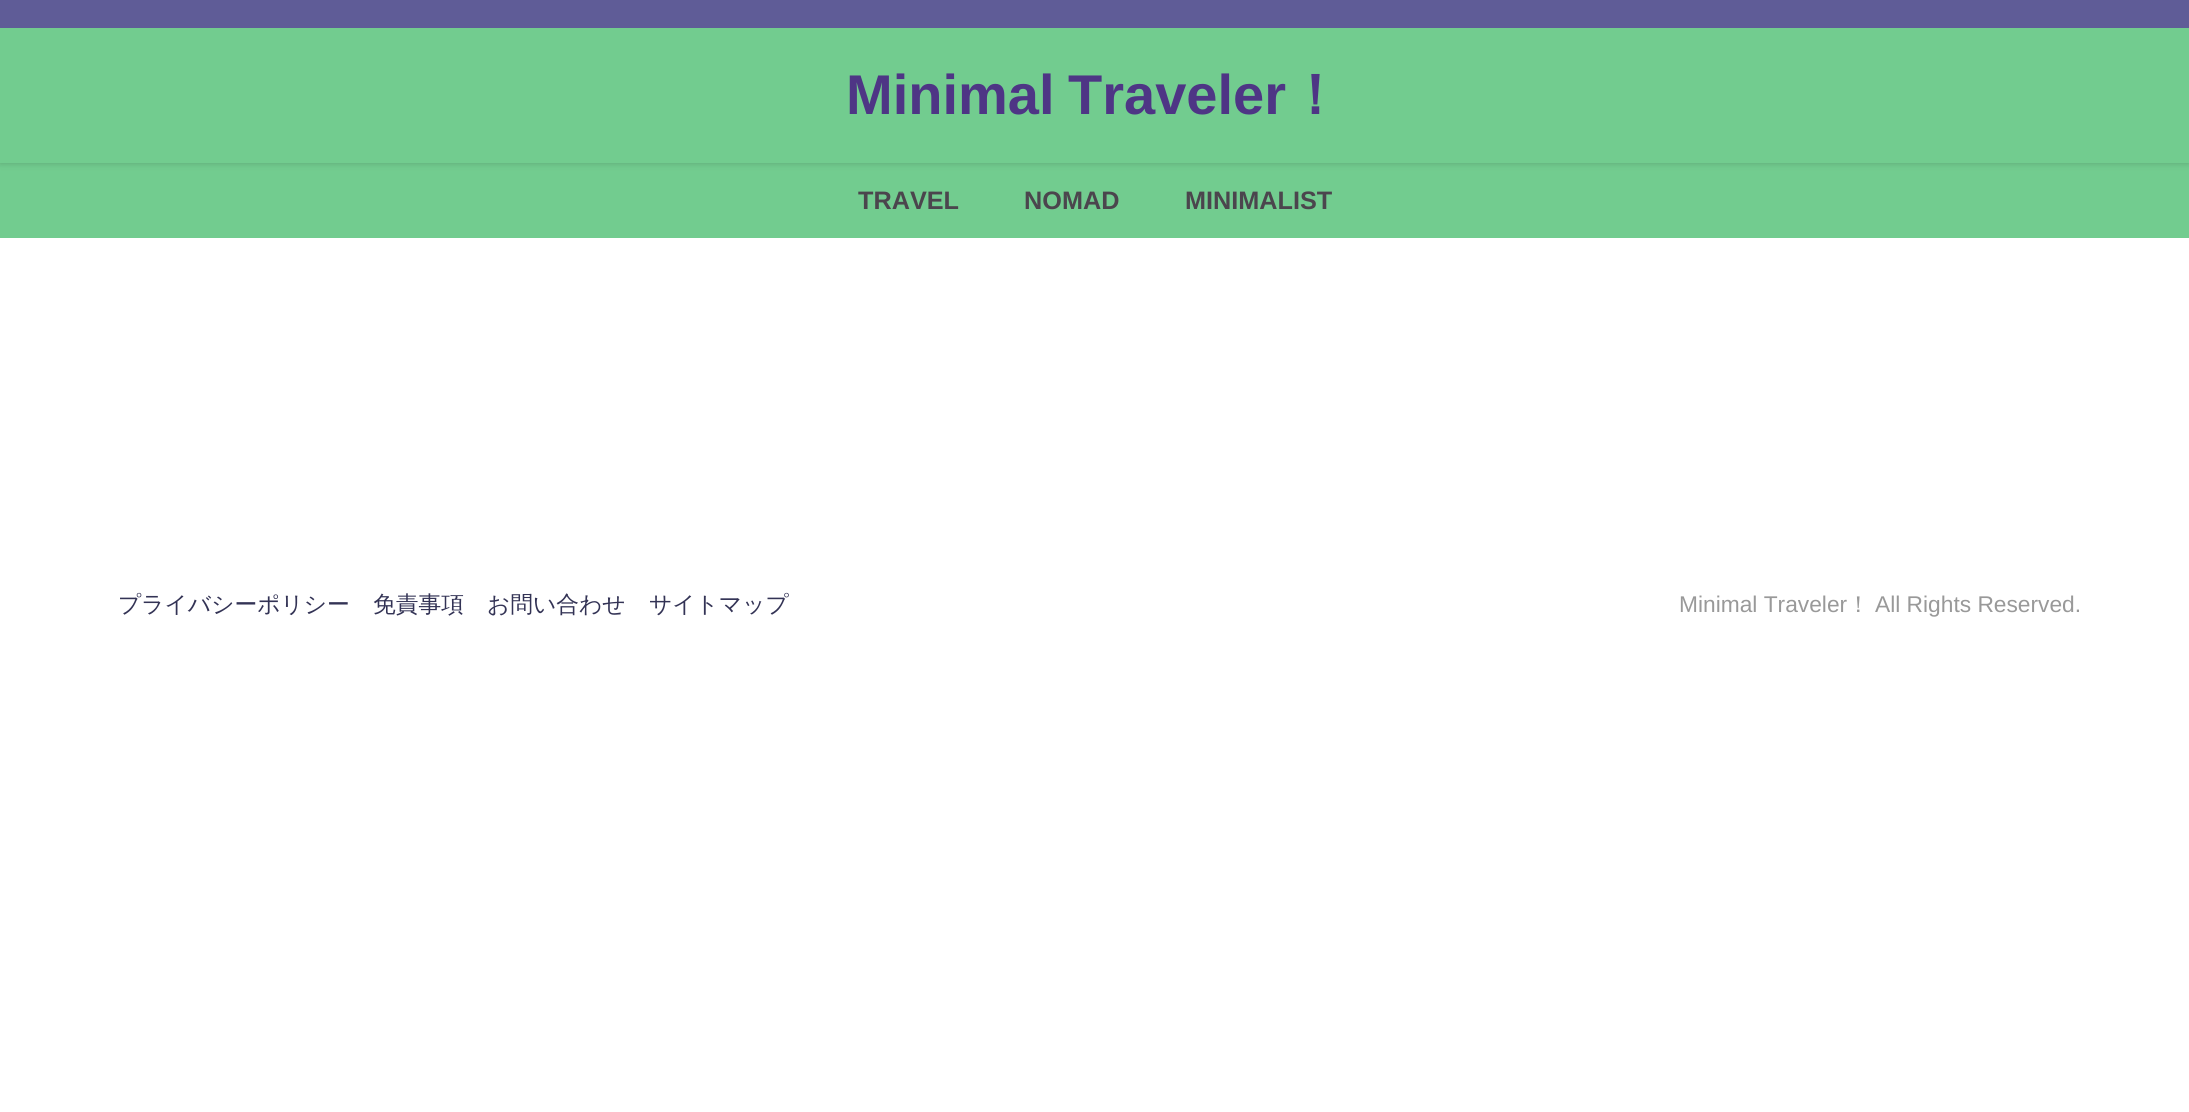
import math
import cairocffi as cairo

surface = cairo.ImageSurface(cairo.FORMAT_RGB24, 2189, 1112)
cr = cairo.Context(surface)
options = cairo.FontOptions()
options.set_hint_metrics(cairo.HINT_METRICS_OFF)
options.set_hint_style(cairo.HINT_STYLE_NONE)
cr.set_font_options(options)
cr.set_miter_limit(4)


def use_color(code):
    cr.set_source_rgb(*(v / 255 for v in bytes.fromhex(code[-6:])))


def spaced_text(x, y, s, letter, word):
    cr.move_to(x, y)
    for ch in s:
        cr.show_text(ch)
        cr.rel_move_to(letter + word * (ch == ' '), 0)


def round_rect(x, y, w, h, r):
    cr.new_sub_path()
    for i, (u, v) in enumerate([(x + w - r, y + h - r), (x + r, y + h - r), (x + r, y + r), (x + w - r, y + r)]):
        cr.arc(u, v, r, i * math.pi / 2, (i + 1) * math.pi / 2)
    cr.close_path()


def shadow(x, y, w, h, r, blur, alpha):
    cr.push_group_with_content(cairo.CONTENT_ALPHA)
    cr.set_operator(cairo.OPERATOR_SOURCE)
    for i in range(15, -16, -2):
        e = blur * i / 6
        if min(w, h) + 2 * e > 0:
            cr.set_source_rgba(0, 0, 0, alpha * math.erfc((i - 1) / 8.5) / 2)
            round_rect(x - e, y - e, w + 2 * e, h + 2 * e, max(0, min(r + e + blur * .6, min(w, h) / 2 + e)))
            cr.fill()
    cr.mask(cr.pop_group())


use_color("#ffffff")
cr.paint()
use_color("#72cc8f")
cr.rectangle(0, 163, 2189, 75)
cr.fill()
use_color("#000000")
shadow(0, 0, 2189, 163, 0, 3.5, 0.2)
use_color("#72cc8f")
cr.rectangle(0, 28, 2189, 135)
cr.fill()
use_color("#5f5c97")
cr.rectangle(0, 0, 2189, 28)
cr.fill()
cr.select_font_face("Liberation Sans", cairo.FONT_SLANT_NORMAL, cairo.FONT_WEIGHT_BOLD)
cr.set_font_size(56)
use_color("#4e3585")
spaced_text(846, 114, "Minimal Traveler", 0, -2)
cr.select_font_face("WenQuanYi Zen Hei", cairo.FONT_SLANT_NORMAL, cairo.FONT_WEIGHT_BOLD)
cr.move_to(1287, 114)
cr.show_text("！")
cr.select_font_face("Liberation Sans", cairo.FONT_SLANT_NORMAL, cairo.FONT_WEIGHT_BOLD)
cr.set_font_size(25.25)
use_color("#4b454d")
cr.move_to(858, 209)
cr.show_text("TRAVEL")
cr.move_to(1024, 209)
cr.show_text("NOMAD")
cr.move_to(1185, 209)
cr.show_text("MINIMALIST")
cr.select_font_face("WenQuanYi Zen Hei Medium")
cr.set_font_size(22.75)
use_color("#333355")
cr.move_to(118, 612)
cr.show_text("プライバシーポリシー")
cr.move_to(373, 612)
cr.show_text("免責事項")
cr.move_to(487, 612)
cr.show_text("お問い合わせ")
cr.move_to(649, 612)
cr.show_text("サイトマップ")
cr.select_font_face("Liberation Sans")
use_color("#999999")
cr.move_to(1679, 612)
cr.show_text("Minimal Traveler")
cr.select_font_face("WenQuanYi Zen Hei Medium")
cr.move_to(1847, 612)
cr.show_text("！")
cr.select_font_face("Liberation Sans")
cr.move_to(1875, 612)
cr.show_text("All Rights Reserved.")
surface.write_to_png("result.png")
